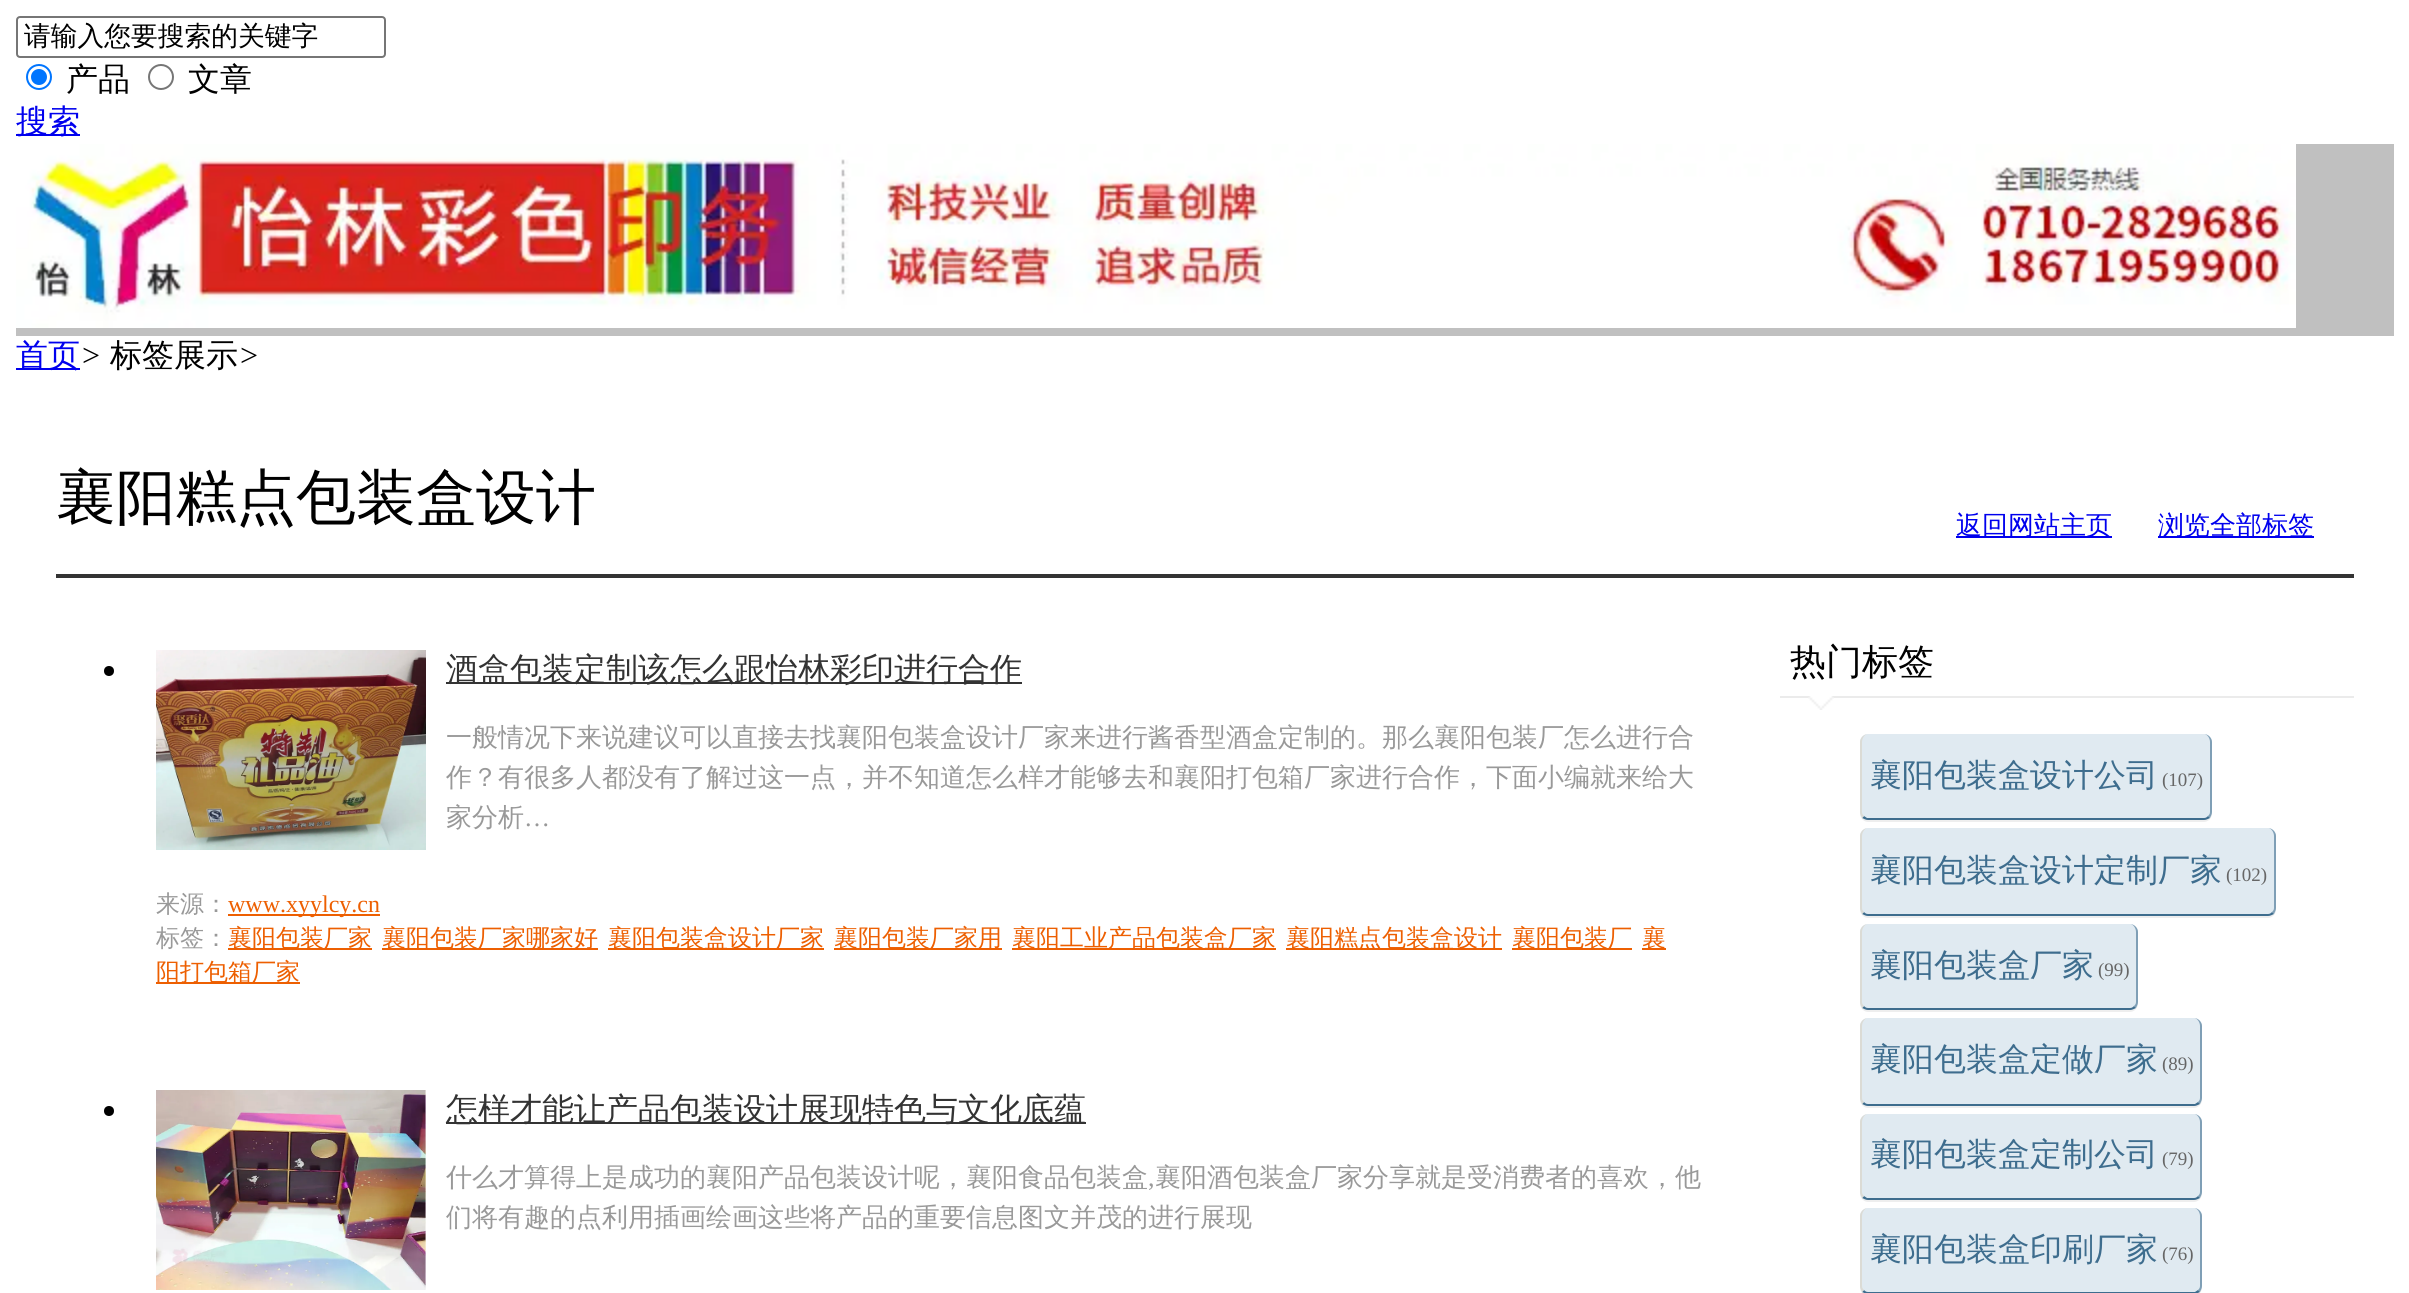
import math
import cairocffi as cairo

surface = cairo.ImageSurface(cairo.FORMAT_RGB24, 2409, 1293)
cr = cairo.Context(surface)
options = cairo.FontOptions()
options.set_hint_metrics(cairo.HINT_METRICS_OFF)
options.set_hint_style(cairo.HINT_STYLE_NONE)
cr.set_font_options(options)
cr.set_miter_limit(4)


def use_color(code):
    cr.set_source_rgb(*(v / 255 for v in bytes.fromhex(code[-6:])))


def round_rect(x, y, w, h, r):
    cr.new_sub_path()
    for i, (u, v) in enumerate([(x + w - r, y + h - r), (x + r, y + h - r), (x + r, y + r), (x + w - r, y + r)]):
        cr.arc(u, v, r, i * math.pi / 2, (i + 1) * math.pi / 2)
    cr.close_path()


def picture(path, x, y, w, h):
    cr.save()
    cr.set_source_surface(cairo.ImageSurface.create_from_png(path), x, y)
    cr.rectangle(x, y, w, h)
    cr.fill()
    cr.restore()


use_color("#ffffff")
cr.paint()
round_rect(17, 17, 368, 40, 3)
use_color("#767676")
cr.stroke()
cr.select_font_face("WenQuanYi Zen Hei Medium")
cr.set_font_size(26.75)
use_color("#000000")
cr.move_to(24, 45)
cr.show_text("请输入您要搜索的关键字")
cr.new_path()
cr.arc(39, 77, 12, 0, 2 * math.pi)
use_color("#0075ff")
cr.stroke()
cr.arc(39, 77, 8, 0, 2 * math.pi)
cr.fill()
cr.set_font_size(32)
use_color("#000000")
cr.move_to(66, 90)
cr.show_text("产品")
cr.new_path()
cr.arc(161, 77, 12, 0, 2 * math.pi)
use_color("#767676")
cr.stroke()
use_color("#000000")
cr.move_to(188, 90)
cr.show_text("文章")
use_color("#0000ee")
cr.rectangle(16, 134, 64, 2)
cr.fill()
cr.move_to(16, 132)
cr.show_text("搜索")
use_color("#c0c0c0")
cr.rectangle(16, 144, 2378, 192)
cr.fill()
picture("img1.png", 16, 144, 2280, 184)
use_color("#0000ee")
cr.rectangle(16, 368, 64, 2)
cr.fill()
cr.move_to(16, 366)
cr.show_text("首页")
cr.select_font_face("Liberation Serif", cairo.FONT_SLANT_ITALIC)
use_color("#000000")
cr.move_to(80, 366)
cr.show_text(">")
cr.select_font_face("WenQuanYi Zen Hei Medium")
cr.move_to(110, 366)
cr.show_text("标签展示")
cr.select_font_face("Liberation Serif", cairo.FONT_SLANT_ITALIC)
cr.move_to(238, 366)
cr.show_text(">")
use_color("#333333")
cr.rectangle(56, 574, 2298, 4)
cr.fill()
cr.select_font_face("WenQuanYi Zen Hei Medium")
cr.set_font_size(60)
use_color("#000000")
cr.move_to(56, 518)
cr.show_text("襄阳糕点包装盒设计")
use_color("#0000ee")
cr.rectangle(1956, 536, 156, 2)
cr.fill()
cr.set_font_size(26)
cr.move_to(1956, 534)
cr.show_text("返回网站主页")
cr.rectangle(2158, 536, 156, 2)
cr.fill()
cr.move_to(2158, 534)
cr.show_text("浏览全部标签")
use_color("#000000")
cr.new_path()
cr.arc(109, 671, 5, 0, 2 * math.pi)
cr.fill()
picture("img2.png", 156, 650, 270, 200)
use_color("#333333")
cr.rectangle(446, 682, 576, 2)
cr.fill()
cr.set_font_size(32)
cr.move_to(446, 680)
cr.show_text("酒盒包装定制该怎么跟怡林彩印进行合作")
cr.set_font_size(26)
use_color("#999999")
cr.move_to(446, 746)
cr.show_text("一般情况下来说建议可以直接去找襄阳包装盒设计厂家来进行酱香型酒盒定制的。那么襄阳包装厂怎么进行合")
cr.move_to(446, 786)
cr.show_text("作？有很多人都没有了解过这一点，并不知道怎么样才能够去和襄阳打包箱厂家进行合作，下面小编就来给大")
cr.move_to(446, 826)
cr.show_text("家分析")
cr.select_font_face("Liberation Serif")
cr.move_to(524, 826)
cr.show_text("…")
cr.select_font_face("WenQuanYi Zen Hei Medium")
cr.set_font_size(24)
cr.move_to(156, 912)
cr.show_text("来源：")
use_color("#ed5f01")
cr.rectangle(228, 914, 152, 2)
cr.fill()
cr.select_font_face("Liberation Serif")
cr.move_to(228, 912)
cr.show_text("www.xyylcy.cn")
cr.select_font_face("WenQuanYi Zen Hei Medium")
use_color("#999999")
cr.move_to(156, 946)
cr.show_text("标签：")
use_color("#ed5f01")
cr.rectangle(228, 948, 144, 2)
cr.fill()
cr.move_to(228, 946)
cr.show_text("襄阳包装厂家")
cr.rectangle(382, 948, 216, 2)
cr.fill()
cr.move_to(382, 946)
cr.show_text("襄阳包装厂家哪家好")
cr.rectangle(608, 948, 216, 2)
cr.fill()
cr.move_to(608, 946)
cr.show_text("襄阳包装盒设计厂家")
cr.rectangle(834, 948, 168, 2)
cr.fill()
cr.move_to(834, 946)
cr.show_text("襄阳包装厂家用")
cr.rectangle(1012, 948, 264, 2)
cr.fill()
cr.move_to(1012, 946)
cr.show_text("襄阳工业产品包装盒厂家")
cr.rectangle(1286, 948, 216, 2)
cr.fill()
cr.move_to(1286, 946)
cr.show_text("襄阳糕点包装盒设计")
cr.rectangle(1512, 948, 120, 2)
cr.fill()
cr.move_to(1512, 946)
cr.show_text("襄阳包装厂")
cr.rectangle(1642, 948, 24, 2)
cr.fill()
cr.move_to(1642, 946)
cr.show_text("襄")
cr.rectangle(156, 982, 144, 2)
cr.fill()
cr.move_to(156, 980)
cr.show_text("阳打包箱厂家")
use_color("#000000")
cr.new_path()
cr.arc(109, 1111, 5, 0, 2 * math.pi)
cr.fill()
picture("img3.png", 156, 1090, 270, 200)
use_color("#333333")
cr.rectangle(446, 1122, 640, 2)
cr.fill()
cr.set_font_size(32)
cr.move_to(446, 1120)
cr.show_text("怎样才能让产品包装设计展现特色与文化底蕴")
cr.set_font_size(26)
use_color("#999999")
cr.move_to(446, 1186)
cr.show_text("什么才算得上是成功的襄阳产品包装设计呢，襄阳食品包装盒")
cr.select_font_face("Liberation Serif")
cr.move_to(1148, 1186)
cr.show_text(",")
cr.select_font_face("WenQuanYi Zen Hei Medium")
cr.move_to(1155, 1186)
cr.show_text("襄阳酒包装盒厂家分享就是受消费者的喜欢，他")
cr.move_to(446, 1226)
cr.show_text("们将有趣的点利用插画绘画这些将产品的重要信息图文并茂的进行展现")
use_color("#ebebeb")
cr.rectangle(1780, 696, 574, 2)
cr.fill()
cr.set_font_size(36)
use_color("#000000")
cr.move_to(1790, 674)
cr.show_text("热门标签")
picture("img4.png", 1808, 696, 26, 14)
use_color("#eeeeee")
cr.new_path()
cr.move_to(1860, 812)
cr.line_to(1860, 814)
cr.curve_to(1860, 818, 1864, 822, 1868, 822)
cr.line_to(2204, 822)
cr.curve_to(2208, 822, 2212, 818, 2212, 814)
cr.line_to(2212, 812)
cr.curve_to(2212, 816, 2208, 820, 2204, 820)
cr.line_to(1868, 820)
cr.curve_to(1864, 820, 1860, 816, 1860, 812)
cr.close_path()
cr.fill()
use_color("#e0eaf1")
round_rect(1860, 734, 352, 86, 8)
cr.fill()
use_color("#7f9fb6")
cr.new_path()
cr.move_to(2212, 742)
cr.curve_to(2212, 738, 2208, 734, 2204, 734)
cr.curve_to(2207, 734, 2210, 738, 2210, 742)
cr.line_to(2210, 812)
cr.curve_to(2210, 814, 2209, 815, 2208, 816)
cr.line_to(2210, 818)
cr.curve_to(2211, 816, 2212, 814, 2212, 812)
cr.close_path()
cr.fill()
use_color("#3e6d8e")
cr.new_path()
cr.move_to(1864, 816)
cr.line_to(1867, 818)
cr.line_to(2204, 818)
cr.curve_to(2206, 818, 2207, 817, 2208, 816)
cr.line_to(2210, 818)
cr.curve_to(2208, 819, 2206, 820, 2204, 820)
cr.line_to(1868, 820)
cr.curve_to(1866, 820, 1864, 819, 1862, 818)
cr.close_path()
cr.fill()
use_color("#dbdbd5")
cr.new_path()
cr.move_to(1868, 734)
cr.curve_to(1864, 734, 1860, 738, 1860, 742)
cr.line_to(1860, 812)
cr.curve_to(1860, 814, 1861, 816, 1862, 818)
cr.line_to(1864, 816)
cr.curve_to(1863, 815, 1862, 814, 1862, 812)
cr.line_to(1862, 742)
cr.curve_to(1862, 738, 1865, 734, 1868, 734)
cr.close_path()
cr.fill()
cr.set_font_size(32)
use_color("#3e6d8e")
cr.move_to(1870, 786)
cr.show_text("襄阳包装盒设计公司")
cr.select_font_face("Liberation Serif")
cr.set_font_size(19)
use_color("#666666")
cr.move_to(2162, 786)
cr.show_text("(107)")
use_color("#eeeeee")
cr.new_path()
cr.move_to(1860, 908)
cr.line_to(1860, 910)
cr.curve_to(1860, 914, 1864, 918, 1868, 918)
cr.line_to(2268, 918)
cr.curve_to(2272, 918, 2276, 914, 2276, 910)
cr.line_to(2276, 908)
cr.curve_to(2276, 912, 2272, 916, 2268, 916)
cr.line_to(1868, 916)
cr.curve_to(1864, 916, 1860, 912, 1860, 908)
cr.close_path()
cr.fill()
use_color("#e0eaf1")
round_rect(1860, 828, 416, 88, 8)
cr.fill()
use_color("#7f9fb6")
cr.new_path()
cr.move_to(2276, 836)
cr.curve_to(2276, 832, 2272, 828, 2268, 828)
cr.curve_to(2271, 828, 2274, 832, 2274, 836)
cr.line_to(2274, 908)
cr.curve_to(2274, 910, 2273, 911, 2272, 912)
cr.line_to(2274, 914)
cr.curve_to(2275, 912, 2276, 910, 2276, 908)
cr.close_path()
cr.fill()
use_color("#3e6d8e")
cr.new_path()
cr.move_to(1864, 912)
cr.curve_to(1865, 913, 1866, 914, 1868, 914)
cr.line_to(2268, 914)
cr.curve_to(2270, 914, 2271, 913, 2272, 912)
cr.line_to(2274, 914)
cr.curve_to(2272, 915, 2270, 916, 2268, 916)
cr.line_to(1868, 916)
cr.curve_to(1866, 916, 1864, 915, 1862, 914)
cr.close_path()
cr.fill()
use_color("#dbdbd5")
cr.new_path()
cr.move_to(1868, 828)
cr.curve_to(1864, 828, 1860, 832, 1860, 836)
cr.line_to(1860, 908)
cr.curve_to(1860, 910, 1861, 912, 1862, 914)
cr.line_to(1864, 912)
cr.curve_to(1863, 911, 1862, 910, 1862, 908)
cr.line_to(1862, 836)
cr.curve_to(1862, 832, 1865, 828, 1868, 828)
cr.close_path()
cr.fill()
cr.select_font_face("WenQuanYi Zen Hei Medium")
cr.set_font_size(32)
use_color("#3e6d8e")
cr.move_to(1870, 881)
cr.show_text("襄阳包装盒设计定制厂家")
cr.select_font_face("Liberation Serif")
cr.set_font_size(19)
use_color("#666666")
cr.move_to(2226, 881)
cr.show_text("(102)")
use_color("#eeeeee")
cr.new_path()
cr.move_to(1860, 1002)
cr.line_to(1860, 1004)
cr.curve_to(1860, 1008, 1864, 1012, 1868, 1012)
cr.line_to(2130, 1012)
cr.curve_to(2134, 1012, 2138, 1008, 2138, 1004)
cr.line_to(2138, 1002)
cr.curve_to(2138, 1006, 2134, 1010, 2130, 1010)
cr.line_to(1868, 1010)
cr.curve_to(1864, 1010, 1860, 1006, 1860, 1002)
cr.close_path()
cr.fill()
use_color("#e0eaf1")
round_rect(1860, 924, 278, 86, 8)
cr.fill()
use_color("#7f9fb6")
cr.new_path()
cr.move_to(2138, 932)
cr.curve_to(2138, 928, 2134, 924, 2130, 924)
cr.curve_to(2133, 924, 2136, 928, 2136, 932)
cr.line_to(2136, 1002)
cr.curve_to(2136, 1004, 2135, 1005, 2134, 1006)
cr.line_to(2136, 1008)
cr.curve_to(2137, 1006, 2138, 1004, 2138, 1002)
cr.close_path()
cr.fill()
use_color("#3e6d8e")
cr.new_path()
cr.move_to(1864, 1006)
cr.curve_to(1865, 1007, 1866, 1008, 1868, 1008)
cr.line_to(2130, 1008)
cr.curve_to(2132, 1008, 2133, 1007, 2134, 1006)
cr.line_to(2136, 1008)
cr.curve_to(2134, 1009, 2132, 1010, 2130, 1010)
cr.line_to(1868, 1010)
cr.curve_to(1866, 1010, 1864, 1009, 1862, 1008)
cr.close_path()
cr.fill()
use_color("#dbdbd5")
cr.new_path()
cr.move_to(1868, 924)
cr.curve_to(1864, 924, 1860, 928, 1860, 932)
cr.line_to(1860, 1002)
cr.curve_to(1860, 1004, 1861, 1006, 1862, 1008)
cr.line_to(1864, 1006)
cr.curve_to(1863, 1005, 1862, 1004, 1862, 1002)
cr.line_to(1862, 932)
cr.curve_to(1862, 928, 1865, 924, 1868, 924)
cr.close_path()
cr.fill()
cr.select_font_face("WenQuanYi Zen Hei Medium")
cr.set_font_size(32)
use_color("#3e6d8e")
cr.move_to(1870, 976)
cr.show_text("襄阳包装盒厂家")
cr.select_font_face("Liberation Serif")
cr.set_font_size(19)
use_color("#666666")
cr.move_to(2098, 976)
cr.show_text("(99)")
use_color("#eeeeee")
cr.new_path()
cr.move_to(1860, 1098)
cr.line_to(1860, 1100)
cr.curve_to(1860, 1104, 1864, 1108, 1868, 1108)
cr.line_to(2194, 1108)
cr.curve_to(2198, 1108, 2202, 1104, 2202, 1100)
cr.line_to(2202, 1098)
cr.curve_to(2202, 1102, 2198, 1106, 2194, 1106)
cr.line_to(1868, 1106)
cr.curve_to(1864, 1106, 1860, 1102, 1860, 1098)
cr.close_path()
cr.fill()
use_color("#e0eaf1")
round_rect(1860, 1018, 342, 88, 8)
cr.fill()
use_color("#7f9fb6")
cr.new_path()
cr.move_to(2202, 1026)
cr.curve_to(2202, 1022, 2198, 1018, 2194, 1018)
cr.curve_to(2197, 1018, 2200, 1022, 2200, 1026)
cr.line_to(2200, 1098)
cr.curve_to(2200, 1100, 2199, 1101, 2198, 1102)
cr.line_to(2200, 1104)
cr.curve_to(2201, 1102, 2202, 1100, 2202, 1098)
cr.close_path()
cr.fill()
use_color("#3e6d8e")
cr.new_path()
cr.move_to(1864, 1102)
cr.curve_to(1865, 1103, 1866, 1104, 1868, 1104)
cr.line_to(2195, 1104)
cr.line_to(2198, 1102)
cr.line_to(2200, 1104)
cr.curve_to(2198, 1105, 2196, 1106, 2194, 1106)
cr.line_to(1868, 1106)
cr.curve_to(1866, 1106, 1864, 1105, 1862, 1104)
cr.close_path()
cr.fill()
use_color("#dbdbd5")
cr.new_path()
cr.move_to(1868, 1018)
cr.curve_to(1864, 1018, 1860, 1022, 1860, 1026)
cr.line_to(1860, 1098)
cr.curve_to(1860, 1100, 1861, 1102, 1862, 1104)
cr.line_to(1864, 1102)
cr.curve_to(1863, 1101, 1862, 1100, 1862, 1098)
cr.line_to(1862, 1026)
cr.curve_to(1862, 1022, 1865, 1018, 1868, 1018)
cr.close_path()
cr.fill()
cr.select_font_face("WenQuanYi Zen Hei Medium")
cr.set_font_size(32)
use_color("#3e6d8e")
cr.move_to(1870, 1070)
cr.show_text("襄阳包装盒定做厂家")
cr.select_font_face("Liberation Serif")
cr.set_font_size(19)
use_color("#666666")
cr.move_to(2162, 1070)
cr.show_text("(89)")
use_color("#eeeeee")
cr.new_path()
cr.move_to(1860, 1192)
cr.line_to(1860, 1194)
cr.curve_to(1860, 1198, 1864, 1202, 1868, 1202)
cr.line_to(2194, 1202)
cr.curve_to(2198, 1202, 2202, 1198, 2202, 1194)
cr.line_to(2202, 1192)
cr.curve_to(2202, 1196, 2198, 1200, 2194, 1200)
cr.line_to(1868, 1200)
cr.curve_to(1864, 1200, 1860, 1196, 1860, 1192)
cr.close_path()
cr.fill()
use_color("#e0eaf1")
round_rect(1860, 1114, 342, 86, 8)
cr.fill()
use_color("#7f9fb6")
cr.new_path()
cr.move_to(2202, 1122)
cr.curve_to(2202, 1118, 2198, 1114, 2194, 1114)
cr.curve_to(2197, 1114, 2200, 1118, 2200, 1122)
cr.line_to(2200, 1192)
cr.curve_to(2200, 1194, 2199, 1195, 2198, 1196)
cr.line_to(2200, 1198)
cr.curve_to(2201, 1196, 2202, 1194, 2202, 1192)
cr.close_path()
cr.fill()
use_color("#3e6d8e")
cr.new_path()
cr.move_to(1864, 1196)
cr.line_to(1867, 1198)
cr.line_to(2194, 1198)
cr.curve_to(2196, 1198, 2197, 1197, 2198, 1196)
cr.line_to(2200, 1198)
cr.curve_to(2198, 1199, 2196, 1200, 2194, 1200)
cr.line_to(1868, 1200)
cr.curve_to(1866, 1200, 1864, 1199, 1862, 1198)
cr.close_path()
cr.fill()
use_color("#dbdbd5")
cr.new_path()
cr.move_to(1868, 1114)
cr.curve_to(1864, 1114, 1860, 1118, 1860, 1122)
cr.line_to(1860, 1192)
cr.curve_to(1860, 1194, 1861, 1196, 1862, 1198)
cr.line_to(1864, 1196)
cr.curve_to(1863, 1195, 1862, 1194, 1862, 1192)
cr.line_to(1862, 1122)
cr.curve_to(1862, 1118, 1865, 1114, 1868, 1114)
cr.close_path()
cr.fill()
cr.select_font_face("WenQuanYi Zen Hei Medium")
cr.set_font_size(32)
use_color("#3e6d8e")
cr.move_to(1870, 1165)
cr.show_text("襄阳包装盒定制公司")
cr.select_font_face("Liberation Serif")
cr.set_font_size(19)
use_color("#666666")
cr.move_to(2162, 1165)
cr.show_text("(79)")
use_color("#eeeeee")
cr.new_path()
cr.move_to(1860, 1286)
cr.line_to(1860, 1288)
cr.curve_to(1860, 1292, 1864, 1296, 1868, 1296)
cr.line_to(2194, 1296)
cr.curve_to(2198, 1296, 2202, 1292, 2202, 1288)
cr.line_to(2202, 1286)
cr.curve_to(2202, 1290, 2198, 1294, 2194, 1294)
cr.line_to(1868, 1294)
cr.curve_to(1864, 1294, 1860, 1290, 1860, 1286)
cr.close_path()
cr.fill()
use_color("#e0eaf1")
round_rect(1860, 1208, 342, 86, 8)
cr.fill()
use_color("#7f9fb6")
cr.new_path()
cr.move_to(2202, 1216)
cr.curve_to(2202, 1212, 2198, 1208, 2194, 1208)
cr.curve_to(2197, 1208, 2200, 1212, 2200, 1216)
cr.line_to(2200, 1286)
cr.curve_to(2200, 1288, 2199, 1289, 2198, 1290)
cr.line_to(2200, 1292)
cr.curve_to(2201, 1290, 2202, 1288, 2202, 1286)
cr.close_path()
cr.fill()
use_color("#3e6d8e")
cr.new_path()
cr.move_to(1864, 1290)
cr.curve_to(1865, 1291, 1866, 1292, 1868, 1292)
cr.line_to(2195, 1292)
cr.line_to(2198, 1290)
cr.line_to(2200, 1292)
cr.curve_to(2198, 1293, 2196, 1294, 2194, 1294)
cr.line_to(1868, 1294)
cr.curve_to(1866, 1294, 1864, 1293, 1862, 1292)
cr.close_path()
cr.fill()
use_color("#dbdbd5")
cr.new_path()
cr.move_to(1868, 1208)
cr.curve_to(1864, 1208, 1860, 1212, 1860, 1216)
cr.line_to(1860, 1286)
cr.curve_to(1860, 1288, 1861, 1290, 1862, 1292)
cr.line_to(1864, 1290)
cr.curve_to(1863, 1289, 1862, 1288, 1862, 1286)
cr.line_to(1862, 1216)
cr.curve_to(1862, 1212, 1865, 1208, 1868, 1208)
cr.close_path()
cr.fill()
cr.select_font_face("WenQuanYi Zen Hei Medium")
cr.set_font_size(32)
use_color("#3e6d8e")
cr.move_to(1870, 1260)
cr.show_text("襄阳包装盒印刷厂家")
cr.select_font_face("Liberation Serif")
cr.set_font_size(19)
use_color("#666666")
cr.move_to(2162, 1260)
cr.show_text("(76)")
surface.write_to_png("result.png")
